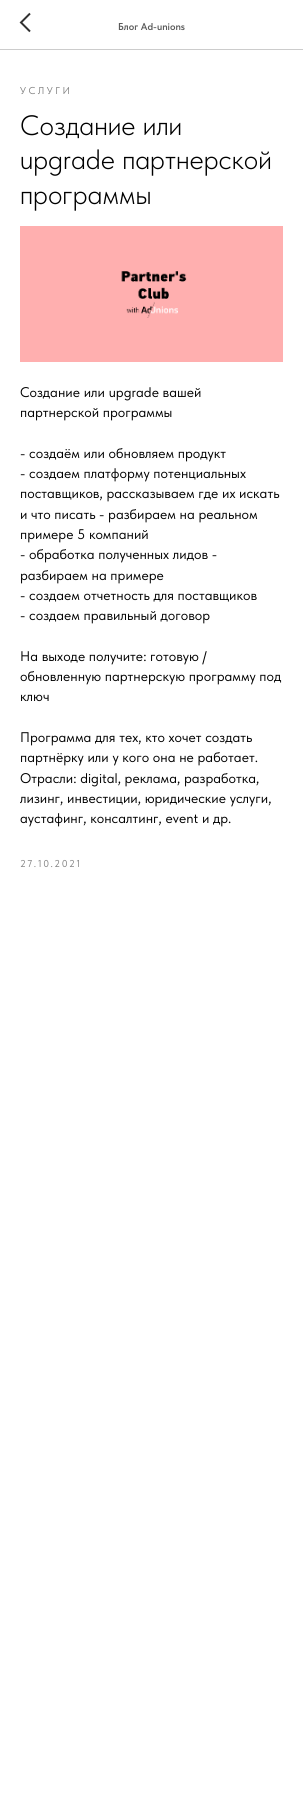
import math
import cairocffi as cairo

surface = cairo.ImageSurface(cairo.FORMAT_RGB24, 303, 1793)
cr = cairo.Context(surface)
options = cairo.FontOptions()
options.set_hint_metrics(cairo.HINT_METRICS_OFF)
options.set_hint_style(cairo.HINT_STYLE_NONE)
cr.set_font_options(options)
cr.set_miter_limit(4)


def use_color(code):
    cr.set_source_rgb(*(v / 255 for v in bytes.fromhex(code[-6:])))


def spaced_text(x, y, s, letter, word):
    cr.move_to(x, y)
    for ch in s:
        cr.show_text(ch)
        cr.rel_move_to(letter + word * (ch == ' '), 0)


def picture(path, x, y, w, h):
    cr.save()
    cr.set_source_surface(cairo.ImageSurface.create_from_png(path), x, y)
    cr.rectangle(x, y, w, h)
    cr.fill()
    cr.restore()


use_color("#ffffff")
cr.paint()
use_color("#cccccc")
cr.rectangle(0, 49, 303, 1)
cr.fill()
cr.new_path()
cr.move_to(30, 31.5)
cr.line_to(21, 22.5)
cr.line_to(30, 13.5)
use_color("#313131")
cr.stroke()
cr.select_font_face("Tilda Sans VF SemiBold")
cr.set_font_size(10)
use_color("#5a5a5a")
cr.move_to(118, 30)
cr.show_text("Блог Ad-unions")
cr.select_font_face("Tilda Sans VF")
use_color("#808080")
spaced_text(20, 94, "УСЛУГИ", 2.5, 0)
cr.select_font_face("Tilda Sans VF Light")
cr.set_font_size(28)
use_color("#000000")
cr.move_to(20, 135)
cr.show_text("Создание или")
cr.move_to(20, 169)
cr.show_text("upgrade партнерской")
cr.move_to(20, 204)
cr.show_text("программы")
picture("img1.png", 20, 226, 263, 136)
cr.select_font_face("Tilda Sans VF")
cr.set_font_size(14)
cr.move_to(20, 397)
cr.show_text("Создание или upgrade вашей")
cr.move_to(20, 417)
cr.show_text("партнерской программы")
cr.move_to(20, 458)
cr.show_text("- создаём или обновляем продукт")
cr.move_to(20, 478)
cr.show_text("- создаем платформу потенциальных")
cr.move_to(20, 498)
cr.show_text("поставщиков, рассказываем где их искать")
cr.move_to(20, 519)
cr.show_text("и что писать - разбираем на реальном")
cr.move_to(20, 539)
cr.show_text("примере 5 компаний")
cr.move_to(20, 559)
cr.show_text("- обработка полученных лидов -")
cr.move_to(20, 580)
cr.show_text("разбираем на примере")
cr.move_to(20, 600)
cr.show_text("- создаем отчетность для поставщиков")
cr.move_to(20, 620)
cr.show_text("- создаем правильный договор")
cr.move_to(20, 661)
cr.show_text("На выходе получите: готовую /")
cr.move_to(20, 681)
cr.show_text("обновленную партнерскую программу под")
cr.move_to(20, 701)
cr.show_text("ключ")
cr.move_to(20, 742)
cr.show_text("Программа для тех, кто хочет создать")
cr.move_to(20, 762)
cr.show_text("партнёрку или у кого она не работает.")
cr.move_to(20, 783)
cr.show_text("Отрасли: digital, реклама, разработка,")
cr.move_to(20, 803)
cr.show_text("лизинг, инвестиции, юридические услуги,")
cr.move_to(20, 823)
cr.show_text("аустафинг, консалтинг, event и др.")
cr.set_font_size(10)
use_color("#808080")
spaced_text(20, 867, "27.10.2021", 1.5, 0)
surface.write_to_png("result.png")
